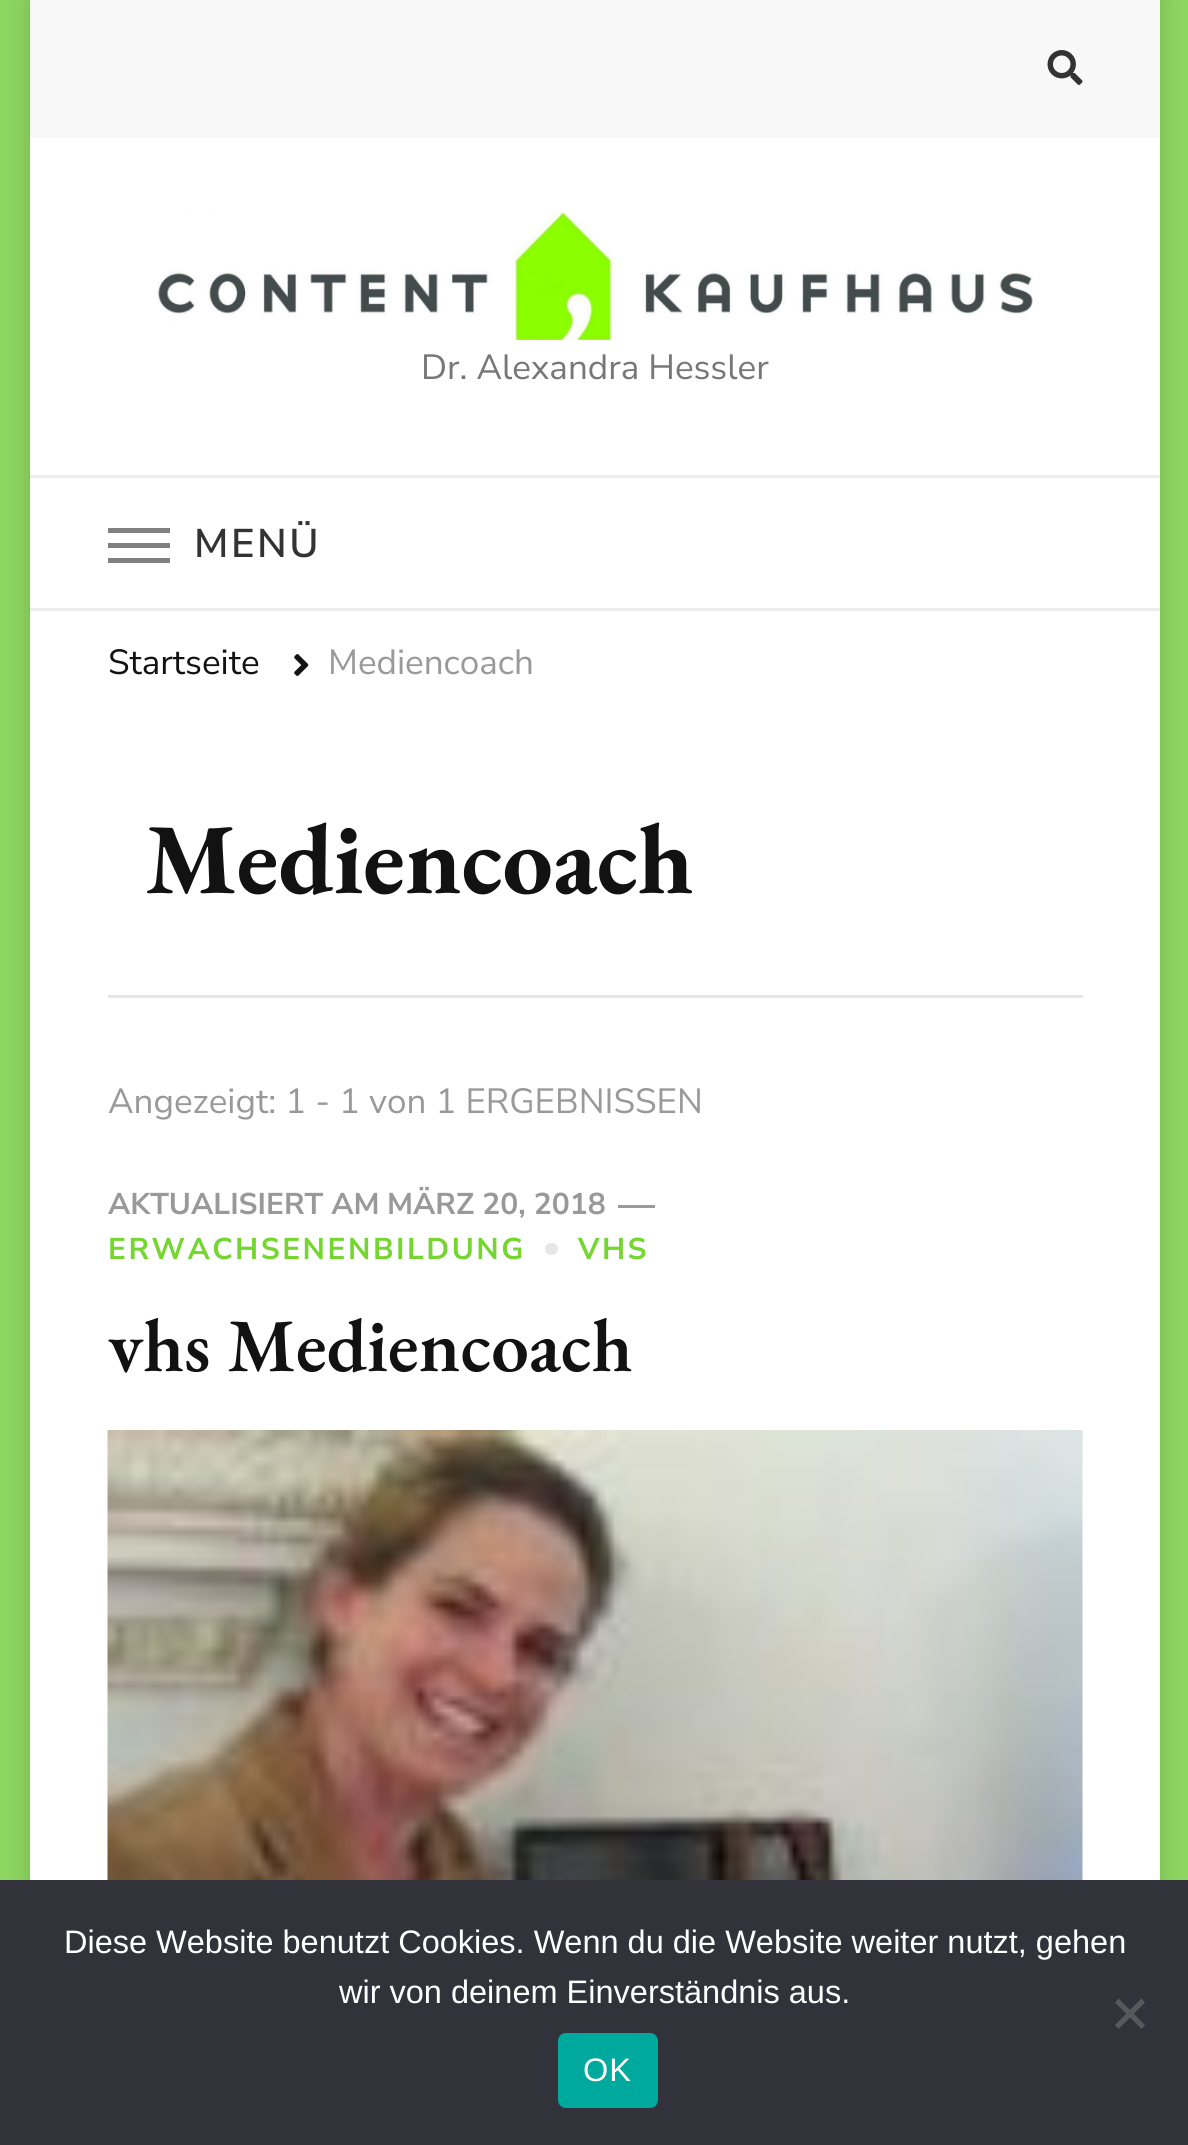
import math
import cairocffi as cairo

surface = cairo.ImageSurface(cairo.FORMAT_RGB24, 1188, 2145)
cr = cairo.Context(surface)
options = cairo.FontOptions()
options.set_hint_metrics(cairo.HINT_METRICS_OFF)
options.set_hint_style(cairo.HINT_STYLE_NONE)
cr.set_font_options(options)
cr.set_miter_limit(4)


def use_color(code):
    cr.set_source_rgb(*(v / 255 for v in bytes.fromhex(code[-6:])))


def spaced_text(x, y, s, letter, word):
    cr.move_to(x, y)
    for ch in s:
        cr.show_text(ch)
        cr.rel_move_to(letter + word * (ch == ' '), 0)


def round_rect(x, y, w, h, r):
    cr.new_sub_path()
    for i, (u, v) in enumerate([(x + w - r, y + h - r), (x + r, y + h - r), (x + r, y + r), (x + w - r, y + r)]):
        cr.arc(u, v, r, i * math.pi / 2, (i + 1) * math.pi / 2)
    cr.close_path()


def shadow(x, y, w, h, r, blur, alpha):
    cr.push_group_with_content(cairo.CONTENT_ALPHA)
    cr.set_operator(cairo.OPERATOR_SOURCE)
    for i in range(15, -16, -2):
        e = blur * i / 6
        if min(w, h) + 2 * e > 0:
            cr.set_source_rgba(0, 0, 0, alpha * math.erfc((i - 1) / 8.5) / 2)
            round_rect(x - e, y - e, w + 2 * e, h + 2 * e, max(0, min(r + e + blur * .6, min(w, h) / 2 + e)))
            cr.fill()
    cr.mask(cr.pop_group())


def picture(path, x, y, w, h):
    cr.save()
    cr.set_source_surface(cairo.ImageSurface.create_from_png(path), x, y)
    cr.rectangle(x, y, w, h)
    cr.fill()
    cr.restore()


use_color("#8dd660")
cr.paint()
use_color("#000000")
shadow(30, 0, 1130, 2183, 0, 12.5, 0.16)
use_color("#ffffff")
cr.rectangle(30, 138, 1130, 1742)
cr.fill()
use_color("#f8f8f8")
cr.rectangle(30, 0, 1130, 138)
cr.fill()
picture("img1.png", 1047, 50, 36, 35)
picture("img2.png", 157, 212, 876, 128)
cr.select_font_face("Nunito Sans")
cr.set_font_size(35)
use_color("#777777")
cr.move_to(421, 379)
cr.show_text("Dr. Alexandra Hessler")
use_color("#ededed")
cr.rectangle(30, 475, 1130, 3)
cr.fill()
cr.rectangle(30, 608, 1130, 3)
cr.fill()
use_color("#808080")
cr.rectangle(108, 528, 62, 5)
cr.fill()
cr.rectangle(108, 543, 62, 5)
cr.fill()
cr.rectangle(108, 558, 62, 5)
cr.fill()
cr.select_font_face("Nunito Sans SemiBold")
cr.set_font_size(40)
use_color("#333333")
spaced_text(194, 557, "MENÜ", 2.5, 0)
cr.select_font_face("Nunito Sans")
cr.set_font_size(35)
use_color("#121212")
cr.move_to(108, 674)
cr.show_text("Startseite")
picture("img3.png", 294, 654, 15, 22)
use_color("#999999")
cr.move_to(328, 674)
cr.show_text("Mediencoach")
use_color("#e6e6e6")
cr.rectangle(108, 995, 975, 3)
cr.fill()
cr.select_font_face("EB Garamond", cairo.FONT_SLANT_NORMAL, cairo.FONT_WEIGHT_BOLD)
cr.set_font_size(100)
use_color("#121212")
cr.move_to(145, 893)
cr.show_text("Mediencoach")
cr.select_font_face("Nunito Sans")
cr.set_font_size(35)
use_color("#999999")
cr.move_to(108, 1113)
cr.show_text("Angezeigt: 1 - 1 von 1 ERGEBNISSEN")
cr.select_font_face("Nunito Sans", cairo.FONT_SLANT_NORMAL, cairo.FONT_WEIGHT_BOLD)
cr.set_font_size(30)
cr.move_to(108, 1214)
cr.show_text("AKTUALISIERT AM")
cr.move_to(387, 1214)
cr.show_text("MÄRZ 20, 2018")
cr.rectangle(618, 1205, 37, 3)
cr.fill()
use_color("#74d62f")
spaced_text(108, 1259, "ERWACHSENENBILDUNG", 2.5, 0)
use_color("#e6e6e6")
round_rect(545, 1243, 13, 12, 6)
cr.fill()
use_color("#74d62f")
spaced_text(578, 1259, "VHS", 2.5, 0)
cr.select_font_face("EB Garamond SemiBold")
cr.set_font_size(75.25)
use_color("#121212")
cr.move_to(108, 1371)
cr.show_text("vhs Mediencoach")
picture("img4.png", 107, 1430, 976, 450)
use_color("#32323a")
cr.rectangle(0, 1880, 1188, 265)
cr.fill()
cr.select_font_face("Liberation Sans")
cr.set_font_size(32.5)
use_color("#ffffff")
cr.move_to(64, 1953)
cr.show_text("Diese Website benutzt Cookies. Wenn du die Website weiter nutzt, gehen")
cr.move_to(339, 2003)
cr.show_text("wir von deinem Einverständnis aus.")
use_color("#59595d")
cr.new_path()
cr.move_to(1141.5, 1998.5)
cr.line_to(1145, 2002.5)
cr.line_to(1118.5, 2029)
cr.line_to(1115, 2025)
cr.close_path()
cr.fill()
cr.new_path()
cr.move_to(1115, 2002.5)
cr.line_to(1118.5, 1998.5)
cr.line_to(1145, 2025)
cr.line_to(1141.5, 2029)
cr.close_path()
cr.fill()
use_color("#00a99d")
round_rect(558, 2033, 100, 75, 8)
cr.fill()
use_color("#ffffff")
spaced_text(583, 2081, "OK", 1, 0)
surface.write_to_png("result.png")
